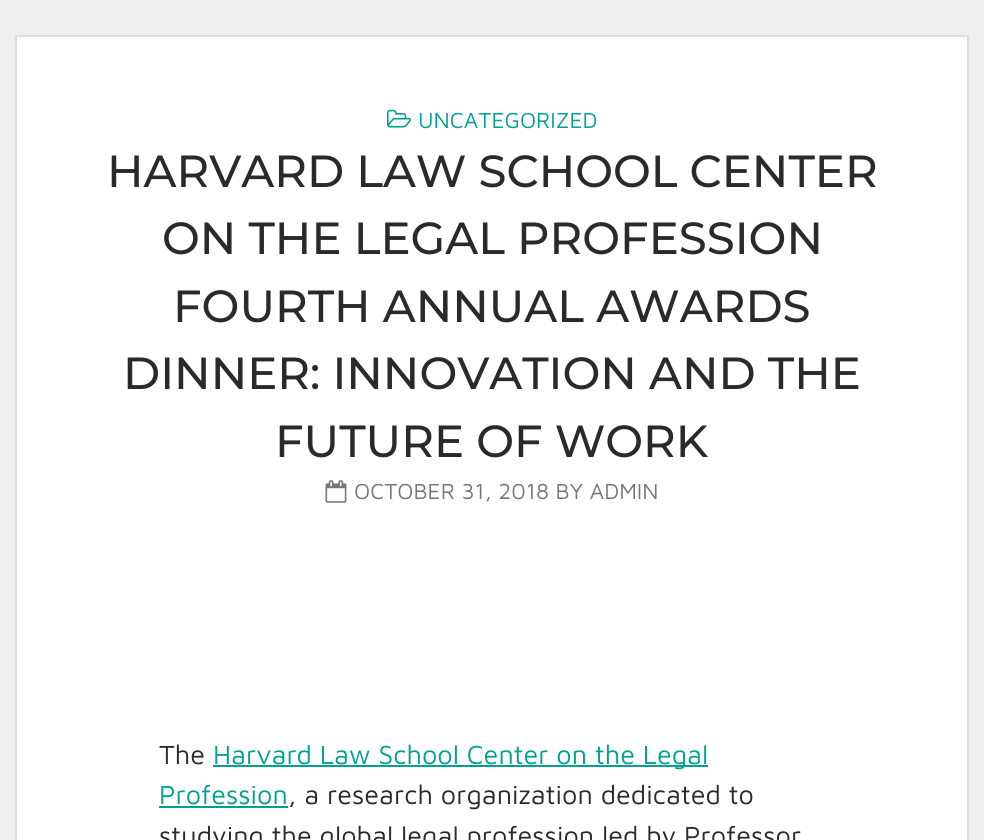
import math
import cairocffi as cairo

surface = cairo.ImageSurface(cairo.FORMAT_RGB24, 984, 840)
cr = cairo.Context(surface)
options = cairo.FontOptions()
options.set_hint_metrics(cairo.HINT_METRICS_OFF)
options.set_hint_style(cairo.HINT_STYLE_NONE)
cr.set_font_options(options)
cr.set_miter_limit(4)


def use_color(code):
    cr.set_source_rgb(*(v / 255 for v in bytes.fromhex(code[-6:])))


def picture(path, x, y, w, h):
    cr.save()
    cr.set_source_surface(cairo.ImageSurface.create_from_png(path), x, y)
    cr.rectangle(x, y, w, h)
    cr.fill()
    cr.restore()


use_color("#efefef")
cr.paint()
use_color("#ffffff")
cr.rectangle(16, 36, 952, 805)
cr.fill_preserve()
use_color("#dedede")
cr.stroke()
picture("img1.png", 387, 109, 24, 19)
cr.select_font_face("Maven Pro")
cr.set_font_size(22.5)
use_color("#00a28d")
cr.move_to(418, 128)
cr.show_text("UNCATEGORIZED")
cr.select_font_face("Montserrat Thin")
cr.set_font_size(45)
use_color("#2a2a2a")
cr.move_to(107, 187)
cr.show_text("HARVARD LAW SCHOOL CENTER")
cr.move_to(162, 254)
cr.show_text("ON THE LEGAL PROFESSION")
cr.move_to(173, 322)
cr.show_text("FOURTH ANNUAL AWARDS")
cr.move_to(123, 389)
cr.show_text("DINNER: INNOVATION AND THE")
cr.move_to(275, 457)
cr.show_text("FUTURE OF WORK")
picture("img2.png", 325, 480, 22, 23)
cr.select_font_face("Maven Pro")
cr.set_font_size(22.5)
use_color("#777777")
cr.move_to(354, 499)
cr.show_text("OCTOBER 31, 2018 BY ADMIN")
cr.set_font_size(27)
use_color("#2a2a2a")
cr.move_to(159, 764)
cr.show_text("The")
use_color("#00a28d")
cr.rectangle(213, 765, 495, 2)
cr.fill()
cr.move_to(213, 764)
cr.show_text("Harvard Law School Center on the Legal")
cr.move_to(159, 804)
cr.show_text("Profession")
cr.rectangle(159, 806, 129, 2)
cr.fill()
use_color("#2a2a2a")
cr.move_to(288, 804)
cr.show_text(", a research organization dedicated to")
cr.move_to(159, 845)
cr.show_text("studying the global legal profession led by Professor")
surface.write_to_png("result.png")
